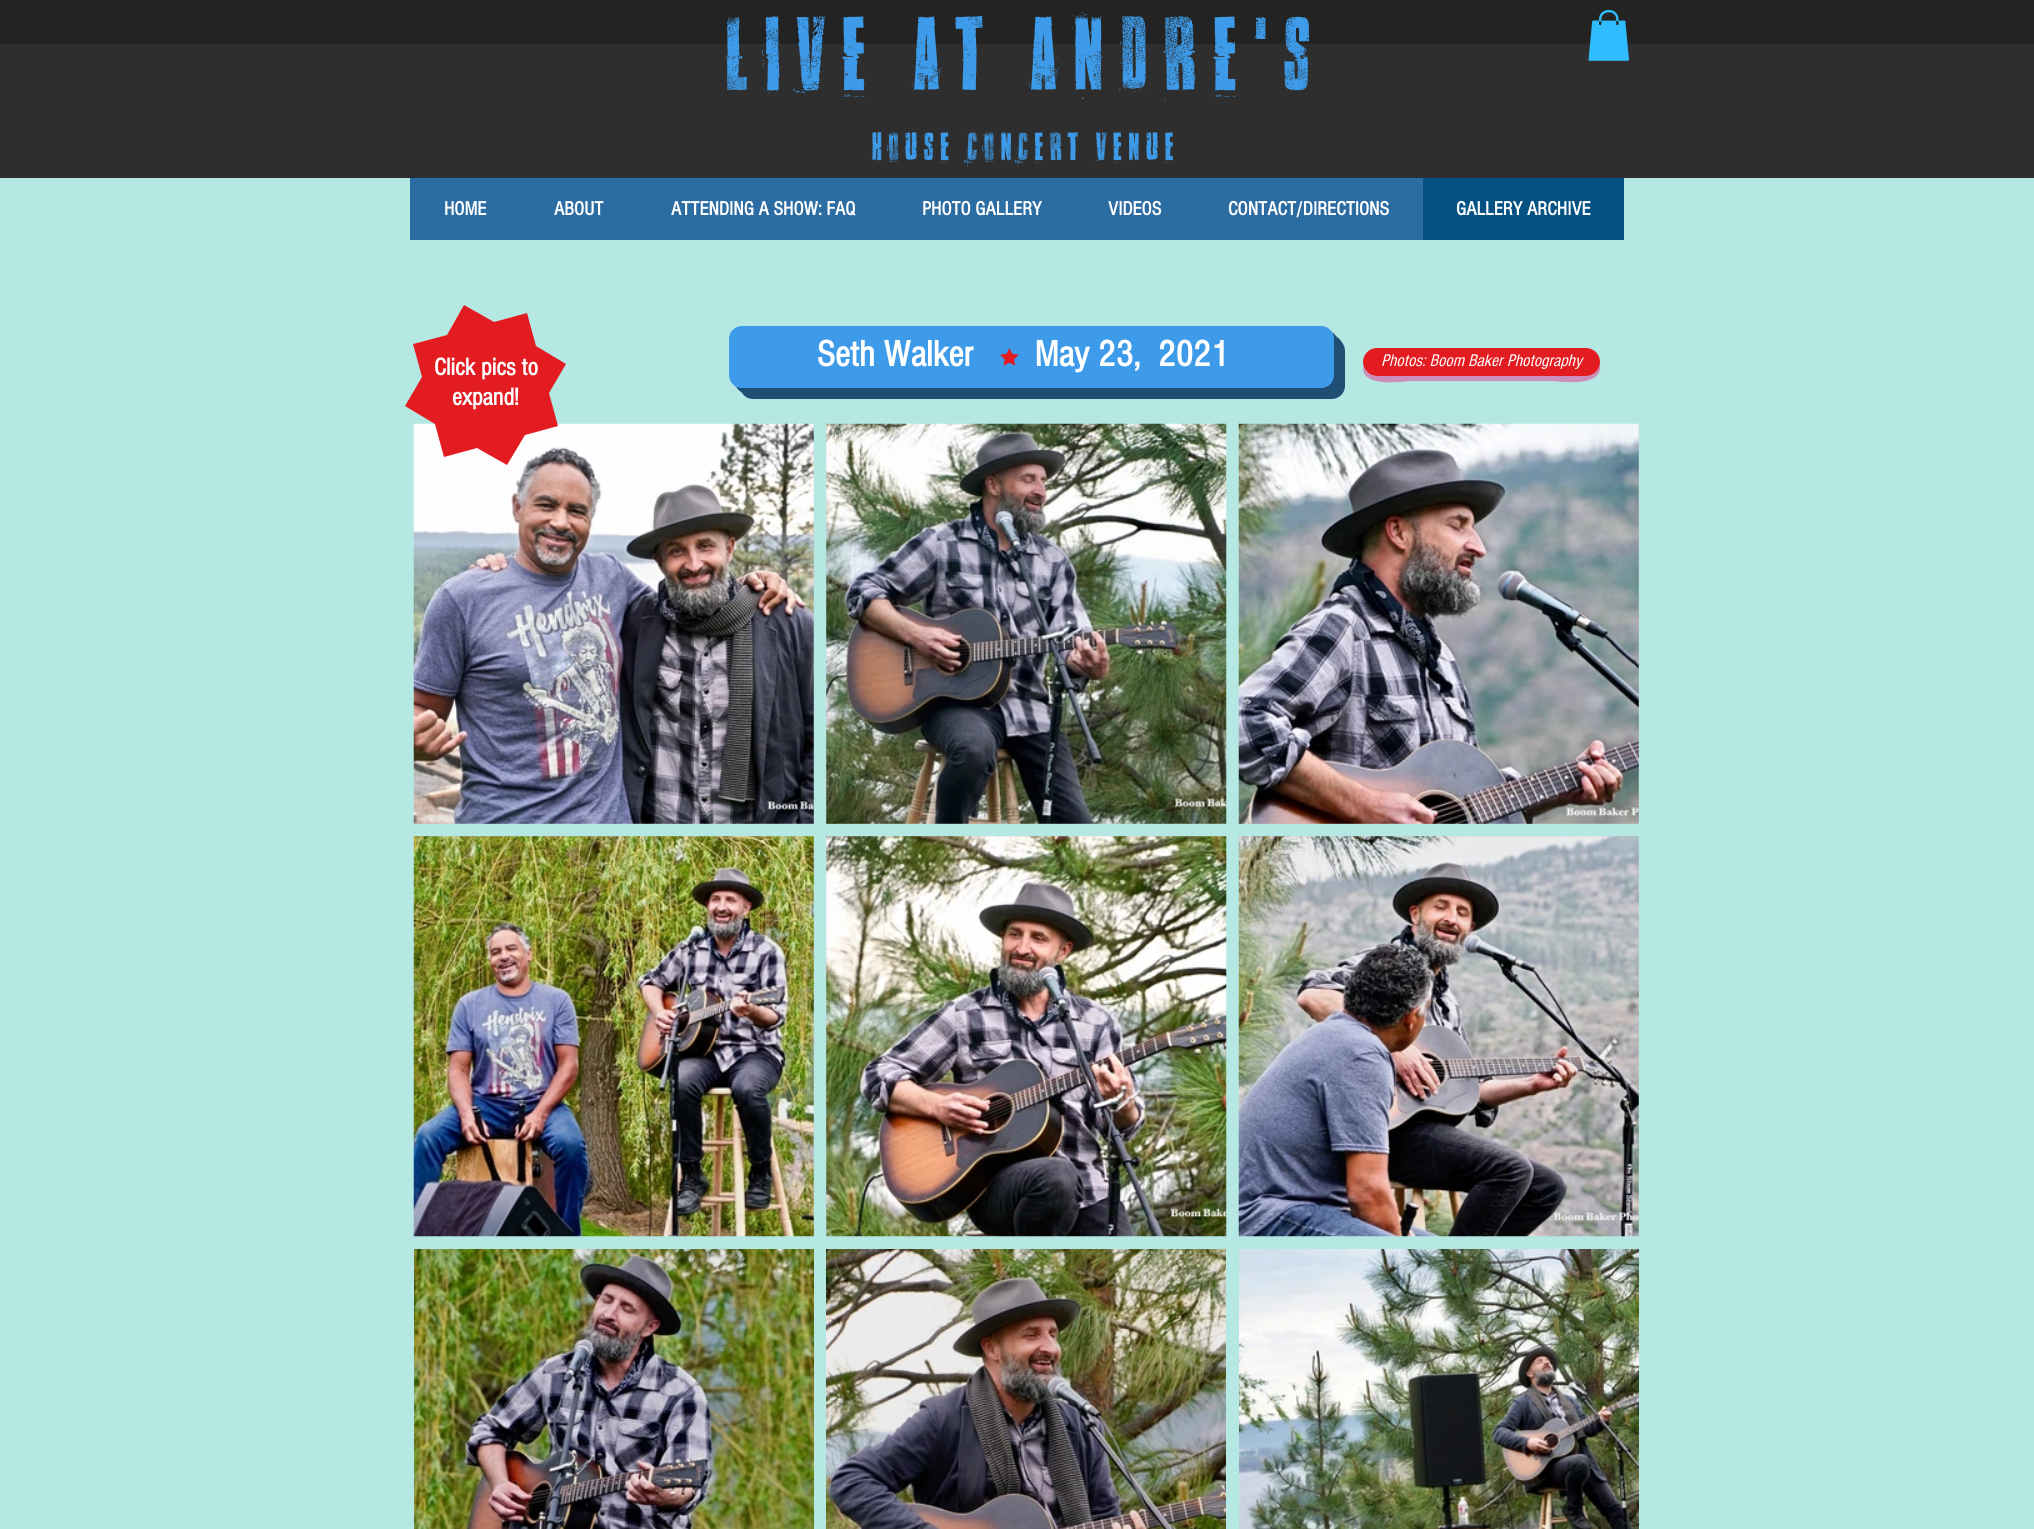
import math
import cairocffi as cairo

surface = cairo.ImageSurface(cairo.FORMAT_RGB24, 2034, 1529)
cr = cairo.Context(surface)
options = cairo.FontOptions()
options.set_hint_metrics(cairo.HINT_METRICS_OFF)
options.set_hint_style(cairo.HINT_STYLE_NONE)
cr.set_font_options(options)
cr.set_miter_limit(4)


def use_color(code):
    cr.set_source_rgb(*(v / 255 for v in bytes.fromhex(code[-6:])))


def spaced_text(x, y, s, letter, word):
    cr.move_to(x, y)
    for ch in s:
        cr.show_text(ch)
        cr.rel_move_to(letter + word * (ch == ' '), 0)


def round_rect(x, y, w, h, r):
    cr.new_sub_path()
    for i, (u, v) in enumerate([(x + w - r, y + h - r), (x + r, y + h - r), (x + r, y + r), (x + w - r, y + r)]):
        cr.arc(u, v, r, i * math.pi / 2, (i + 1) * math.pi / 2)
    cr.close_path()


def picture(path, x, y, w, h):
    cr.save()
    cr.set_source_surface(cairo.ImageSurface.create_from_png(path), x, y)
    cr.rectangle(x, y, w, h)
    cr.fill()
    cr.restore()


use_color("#b6e8e3")
cr.paint()
use_color("#242323")
cr.rectangle(0, 0, 2034, 44)
cr.fill()
use_color("#2f2e2e")
cr.rectangle(0, 44, 2034, 134)
cr.fill()
cr.select_font_face("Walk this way")
cr.set_font_size(100)
use_color("#3d9be9")
spaced_text(724, 90, "LIVE AT ANDRE'S", 15, 0)
cr.set_font_size(37.5)
spaced_text(871, 160, "HOUSE CONCERT VENUE", 5.6, 0)
picture("img1.png", 1588, 10, 41, 51)
use_color("#2b6ca3")
cr.rectangle(410, 178, 1013, 62)
cr.fill()
cr.select_font_face("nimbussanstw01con", cairo.FONT_SLANT_NORMAL, cairo.FONT_WEIGHT_BOLD)
cr.set_font_size(20)
use_color("#ffffff")
cr.move_to(444, 215)
cr.show_text("HOME")
cr.move_to(554, 215)
cr.show_text("ABOUT")
cr.move_to(671, 215)
cr.show_text("ATTENDING A SHOW: FAQ")
cr.move_to(922, 215)
cr.show_text("PHOTO GALLERY")
cr.move_to(1108, 215)
cr.show_text("VIDEOS")
cr.move_to(1228, 215)
cr.show_text("CONTACT/DIRECTIONS")
use_color("#045184")
cr.rectangle(1423, 178, 201, 62)
cr.fill()
use_color("#ffffff")
cr.move_to(1456, 215)
cr.show_text("GALLERY ARCHIVE")
use_color("#cccccc")
cr.rectangle(414, 424, 400, 400)
cr.fill()
picture("img3.png", 413, 423, 401, 401)
use_color("#e21c21")
cr.set_fill_rule(cairo.FILL_RULE_EVEN_ODD)
cr.new_path()
cr.move_to(549, 393)
cr.line_to(566, 364)
cr.line_to(536, 346)
cr.line_to(527, 313)
cr.line_to(494, 322)
cr.line_to(464, 305)
cr.line_to(447, 335)
cr.line_to(413, 344)
cr.line_to(422, 377)
cr.line_to(405, 406)
cr.line_to(435, 424)
cr.line_to(444, 457)
cr.line_to(477, 448)
cr.line_to(507, 465)
cr.line_to(525, 435)
cr.line_to(558, 426)
cr.close_path()
cr.fill()
use_color("#1f4e75")
cr.set_fill_rule(cairo.FILL_RULE_WINDING)
cr.new_path()
cr.move_to(740, 387)
cr.curve_to(741, 394, 746, 399, 753, 399)
cr.line_to(1332, 399)
cr.curve_to(1339, 399, 1345, 393, 1345, 386)
cr.line_to(1345, 351)
cr.curve_to(1345, 344, 1340, 339, 1334, 338)
cr.line_to(1334, 363)
cr.curve_to(1334, 373, 1336, 387, 1321, 388)
cr.close_path()
cr.fill()
cr.new_path()
cr.move_to(739, 387)
cr.curve_to(740, 392, 745, 396, 751, 396)
cr.line_to(1330, 396)
cr.curve_to(1337, 396, 1343, 390, 1343, 383)
cr.line_to(1343, 348)
cr.curve_to(1343, 342, 1339, 337, 1333, 335)
cr.line_to(1334, 363)
cr.curve_to(1334, 373, 1336, 387, 1321, 388)
cr.close_path()
cr.fill()
cr.new_path()
cr.move_to(736, 386)
cr.curve_to(738, 391, 743, 394, 748, 394)
cr.line_to(1327, 394)
cr.curve_to(1334, 394, 1340, 388, 1340, 381)
cr.line_to(1340, 346)
cr.curve_to(1340, 341, 1337, 337, 1333, 334)
cr.line_to(1334, 339)
cr.line_to(1334, 375)
cr.curve_to(1334, 382, 1328, 388, 1321, 388)
cr.line_to(741, 388)
cr.curve_to(739, 388, 738, 387, 736, 386)
cr.close_path()
cr.fill()
cr.new_path()
cr.move_to(736, 386)
cr.curve_to(738, 389, 742, 391, 746, 391)
cr.line_to(1325, 391)
cr.curve_to(1332, 391, 1338, 385, 1338, 378)
cr.line_to(1338, 343)
cr.curve_to(1338, 338, 1335, 334, 1332, 332)
cr.curve_to(1333, 334, 1334, 336, 1334, 339)
cr.line_to(1334, 375)
cr.curve_to(1334, 382, 1328, 388, 1321, 388)
cr.line_to(741, 388)
cr.curve_to(739, 388, 738, 387, 736, 386)
cr.close_path()
cr.fill()
cr.new_path()
cr.move_to(733, 385)
cr.curve_to(736, 387, 739, 389, 743, 389)
cr.line_to(1322, 389)
cr.curve_to(1329, 389, 1335, 383, 1335, 376)
cr.line_to(1335, 341)
cr.curve_to(1335, 338, 1334, 336, 1333, 333)
cr.curve_to(1333, 335, 1334, 337, 1334, 339)
cr.line_to(1334, 375)
cr.curve_to(1334, 382, 1328, 388, 1321, 388)
cr.line_to(741, 388)
cr.curve_to(738, 388, 735, 386, 733, 385)
cr.close_path()
cr.fill()
use_color("#3d9be9")
round_rect(729, 326, 605, 62, 13)
cr.fill()
cr.set_font_size(37.5)
use_color("#ffffff")
cr.move_to(817, 366)
cr.show_text("Seth Walker       May 23,  2021")
picture("img2.png", 1000, 348, 19, 18)
use_color("#cd8dbb")
cr.new_path()
cr.move_to(1363, 366)
cr.curve_to(1361, 389, 1404, 381, 1412, 381)
cr.line_to(1551, 381)
cr.curve_to(1558, 381, 1604, 389, 1600, 364)
cr.curve_to(1599, 371, 1593, 376, 1586, 376)
cr.line_to(1377, 376)
cr.curve_to(1370, 376, 1365, 372, 1363, 366)
cr.close_path()
cr.fill()
use_color("#e21c21")
round_rect(1363, 348, 237, 28, 14)
cr.fill()
cr.select_font_face("nimbussanstw01con", cairo.FONT_SLANT_ITALIC)
cr.set_font_size(17.5)
use_color("#ffffff")
cr.move_to(1381, 366)
cr.show_text("Photos: Boom Baker Photography")
cr.select_font_face("nimbussanstw01con", cairo.FONT_SLANT_NORMAL, cairo.FONT_WEIGHT_BOLD)
cr.set_font_size(25)
cr.move_to(434, 375)
cr.show_text("Click pics to")
cr.move_to(452, 405)
cr.show_text("expand!")
use_color("#cccccc")
cr.rectangle(826, 424, 400, 400)
cr.fill()
picture("img4.png", 826, 423, 401, 401)
cr.rectangle(1239, 424, 400, 400)
cr.fill()
picture("img5.png", 1238, 423, 401, 401)
cr.rectangle(414, 836, 400, 400)
cr.fill()
picture("img6.png", 413, 836, 401, 401)
cr.rectangle(826, 836, 400, 400)
cr.fill()
picture("img7.png", 826, 836, 401, 401)
cr.rectangle(1239, 836, 400, 400)
cr.fill()
picture("img8.png", 1238, 836, 401, 401)
picture("img9.png", 414, 1249, 400, 280)
picture("img10.png", 826, 1249, 400, 280)
picture("img11.png", 1239, 1249, 400, 280)
surface.write_to_png("result.png")
